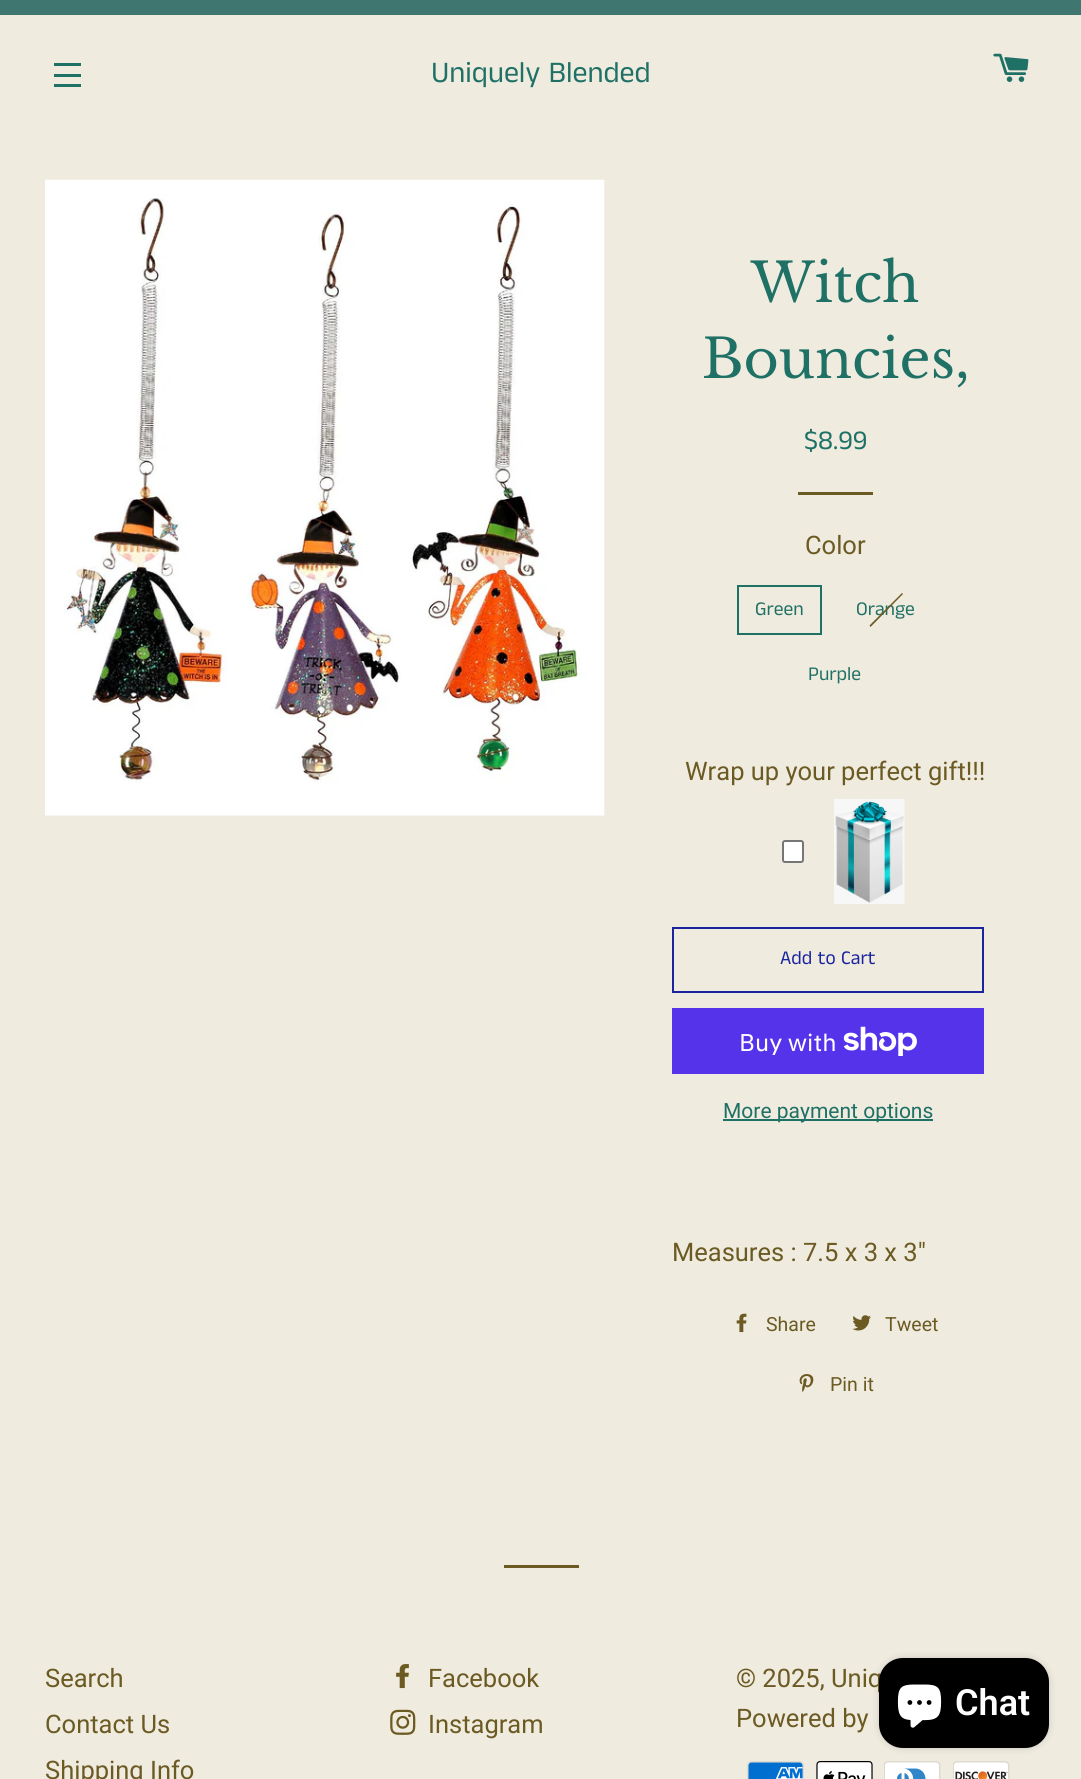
import math
import cairocffi as cairo

surface = cairo.ImageSurface(cairo.FORMAT_RGB24, 1081, 1779)
cr = cairo.Context(surface)
options = cairo.FontOptions()
options.set_hint_metrics(cairo.HINT_METRICS_OFF)
options.set_hint_style(cairo.HINT_STYLE_NONE)
cr.set_font_options(options)
cr.set_miter_limit(4)


def use_color(code):
    cr.set_source_rgb(*(v / 255 for v in bytes.fromhex(code[-6:])))


def round_rect(x, y, w, h, r):
    cr.new_sub_path()
    for i, (u, v) in enumerate([(x + w - r, y + h - r), (x + r, y + h - r), (x + r, y + r), (x + w - r, y + r)]):
        cr.arc(u, v, r, i * math.pi / 2, (i + 1) * math.pi / 2)
    cr.close_path()


def shadow(x, y, w, h, r, blur, alpha):
    cr.push_group_with_content(cairo.CONTENT_ALPHA)
    cr.set_operator(cairo.OPERATOR_SOURCE)
    for i in range(15, -16, -2):
        e = blur * i / 6
        if min(w, h) + 2 * e > 0:
            cr.set_source_rgba(0, 0, 0, alpha * math.erfc((i - 1) / 8.5) / 2)
            round_rect(x - e, y - e, w + 2 * e, h + 2 * e, max(0, min(r + e + blur * .6, min(w, h) / 2 + e)))
            cr.fill()
    cr.mask(cr.pop_group())


def picture(path, x, y, w, h):
    cr.save()
    cr.set_source_surface(cairo.ImageSurface.create_from_png(path), x, y)
    cr.rectangle(x, y, w, h)
    cr.fill()
    cr.restore()


use_color("#efebdf")
cr.paint()
use_color("#3f7670")
cr.rectangle(0, 0, 1081, 15)
cr.fill()
use_color("#1f7065")
cr.rectangle(54, 63, 27, 3)
cr.fill()
cr.rectangle(54, 74, 27, 3)
cr.fill()
cr.rectangle(54, 84, 27, 3)
cr.fill()
cr.select_font_face("Anek Tamil")
cr.set_font_size(30)
cr.move_to(431, 82)
cr.show_text("Uniquely Blended")
picture("img1.png", 993, 53, 36, 29)
picture("img2.png", 45, 179, 560, 637)
cr.select_font_face("Libre Baskerville")
cr.set_font_size(54)
cr.move_to(751, 302)
cr.show_text("Witch")
cr.move_to(702, 378)
cr.show_text("Bouncies,")
cr.select_font_face("Anek Tamil")
cr.set_font_size(27)
cr.move_to(804, 449)
cr.show_text("$8.99")
use_color("#6c5a23")
cr.rectangle(798, 492, 75, 3)
cr.fill()
cr.select_font_face("Roboto")
cr.set_font_size(25.5)
cr.move_to(805, 554)
cr.show_text("Color")
cr.rectangle(738, 586, 83, 48)
use_color("#1f7065")
cr.stroke()
cr.select_font_face("Anek Tamil")
cr.set_font_size(19.5)
cr.move_to(755, 615)
cr.show_text("Green")
cr.move_to(856, 615)
cr.show_text("Orange")
use_color("#6c5a23")
cr.new_path()
cr.move_to(902, 593)
cr.line_to(903, 594)
cr.line_to(870.5, 627)
cr.line_to(869.5, 625.5)
cr.close_path()
cr.fill()
use_color("#1f7065")
cr.move_to(808, 680)
cr.show_text("Purple")
cr.select_font_face("Roboto")
cr.set_font_size(25.5)
use_color("#6c5a23")
cr.move_to(685, 780)
cr.show_text("Wrap up your perfect gift!!!")
use_color("#ffffff")
round_rect(783, 841, 20, 21, 2)
cr.fill_preserve()
use_color("#767676")
cr.stroke()
picture("img3.png", 834, 799, 71, 105)
cr.rectangle(673, 928, 310, 64)
use_color("#1b24a0")
cr.stroke()
cr.select_font_face("Anek Tamil")
cr.set_font_size(19.5)
cr.move_to(780, 964)
cr.show_text("Add to Cart")
use_color("#5433eb")
cr.rectangle(672, 1008, 312, 66)
cr.fill()
cr.select_font_face("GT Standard")
cr.set_font_size(24)
use_color("#ffffff")
cr.move_to(739, 1051)
cr.show_text("Buy with")
picture("img4.png", 843, 1026, 74, 30)
use_color("#1f7065")
cr.rectangle(723, 1119, 210, 2)
cr.fill()
cr.select_font_face("Roboto")
cr.set_font_size(21)
cr.move_to(723, 1118)
cr.show_text("More payment options")
cr.set_font_size(25.5)
use_color("#6c5a23")
cr.move_to(672, 1261)
cr.show_text("Measures : 7.5 x 3 x 3\"")
picture("img5.png", 736, 1313, 11, 20)
cr.set_font_size(19.5)
cr.move_to(766, 1331)
cr.show_text("Share")
picture("img6.png", 852, 1315, 19, 16)
cr.move_to(885, 1331)
cr.show_text("Tweet")
picture("img7.png", 799, 1374, 15, 18)
cr.move_to(830, 1391)
cr.show_text("Pin it")
cr.rectangle(504, 1565, 75, 3)
cr.fill()
cr.set_font_size(25.5)
cr.move_to(45, 1687)
cr.show_text("Search")
cr.move_to(45, 1733)
cr.show_text("Contact Us")
cr.move_to(45, 1779)
cr.show_text("Shipping Info")
picture("img8.png", 396, 1664, 13, 25)
cr.move_to(428, 1687)
cr.show_text("Facebook")
picture("img9.png", 390, 1709, 26, 26)
cr.move_to(428, 1733)
cr.show_text("Instagram")
cr.move_to(736, 1687)
cr.show_text("© 2025, Uniq")
cr.move_to(736, 1727)
cr.show_text("Powered by")
picture("img10.png", 747, 1761, 57, 18)
picture("img11.png", 816, 1761, 57, 18)
picture("img12.png", 884, 1761, 57, 18)
picture("img13.png", 953, 1761, 57, 18)
use_color("#000000")
shadow(879, 1658, 170, 90, 24, 4, 0.15)
use_color("#000000")
round_rect(879, 1658, 170, 90, 24)
cr.fill()
picture("img14.png", 897, 1684, 45, 44)
cr.select_font_face("Roboto SemiBold")
cr.set_font_size(36)
use_color("#ffffff")
cr.move_to(955, 1715)
cr.show_text("Chat")
surface.write_to_png("result.png")
